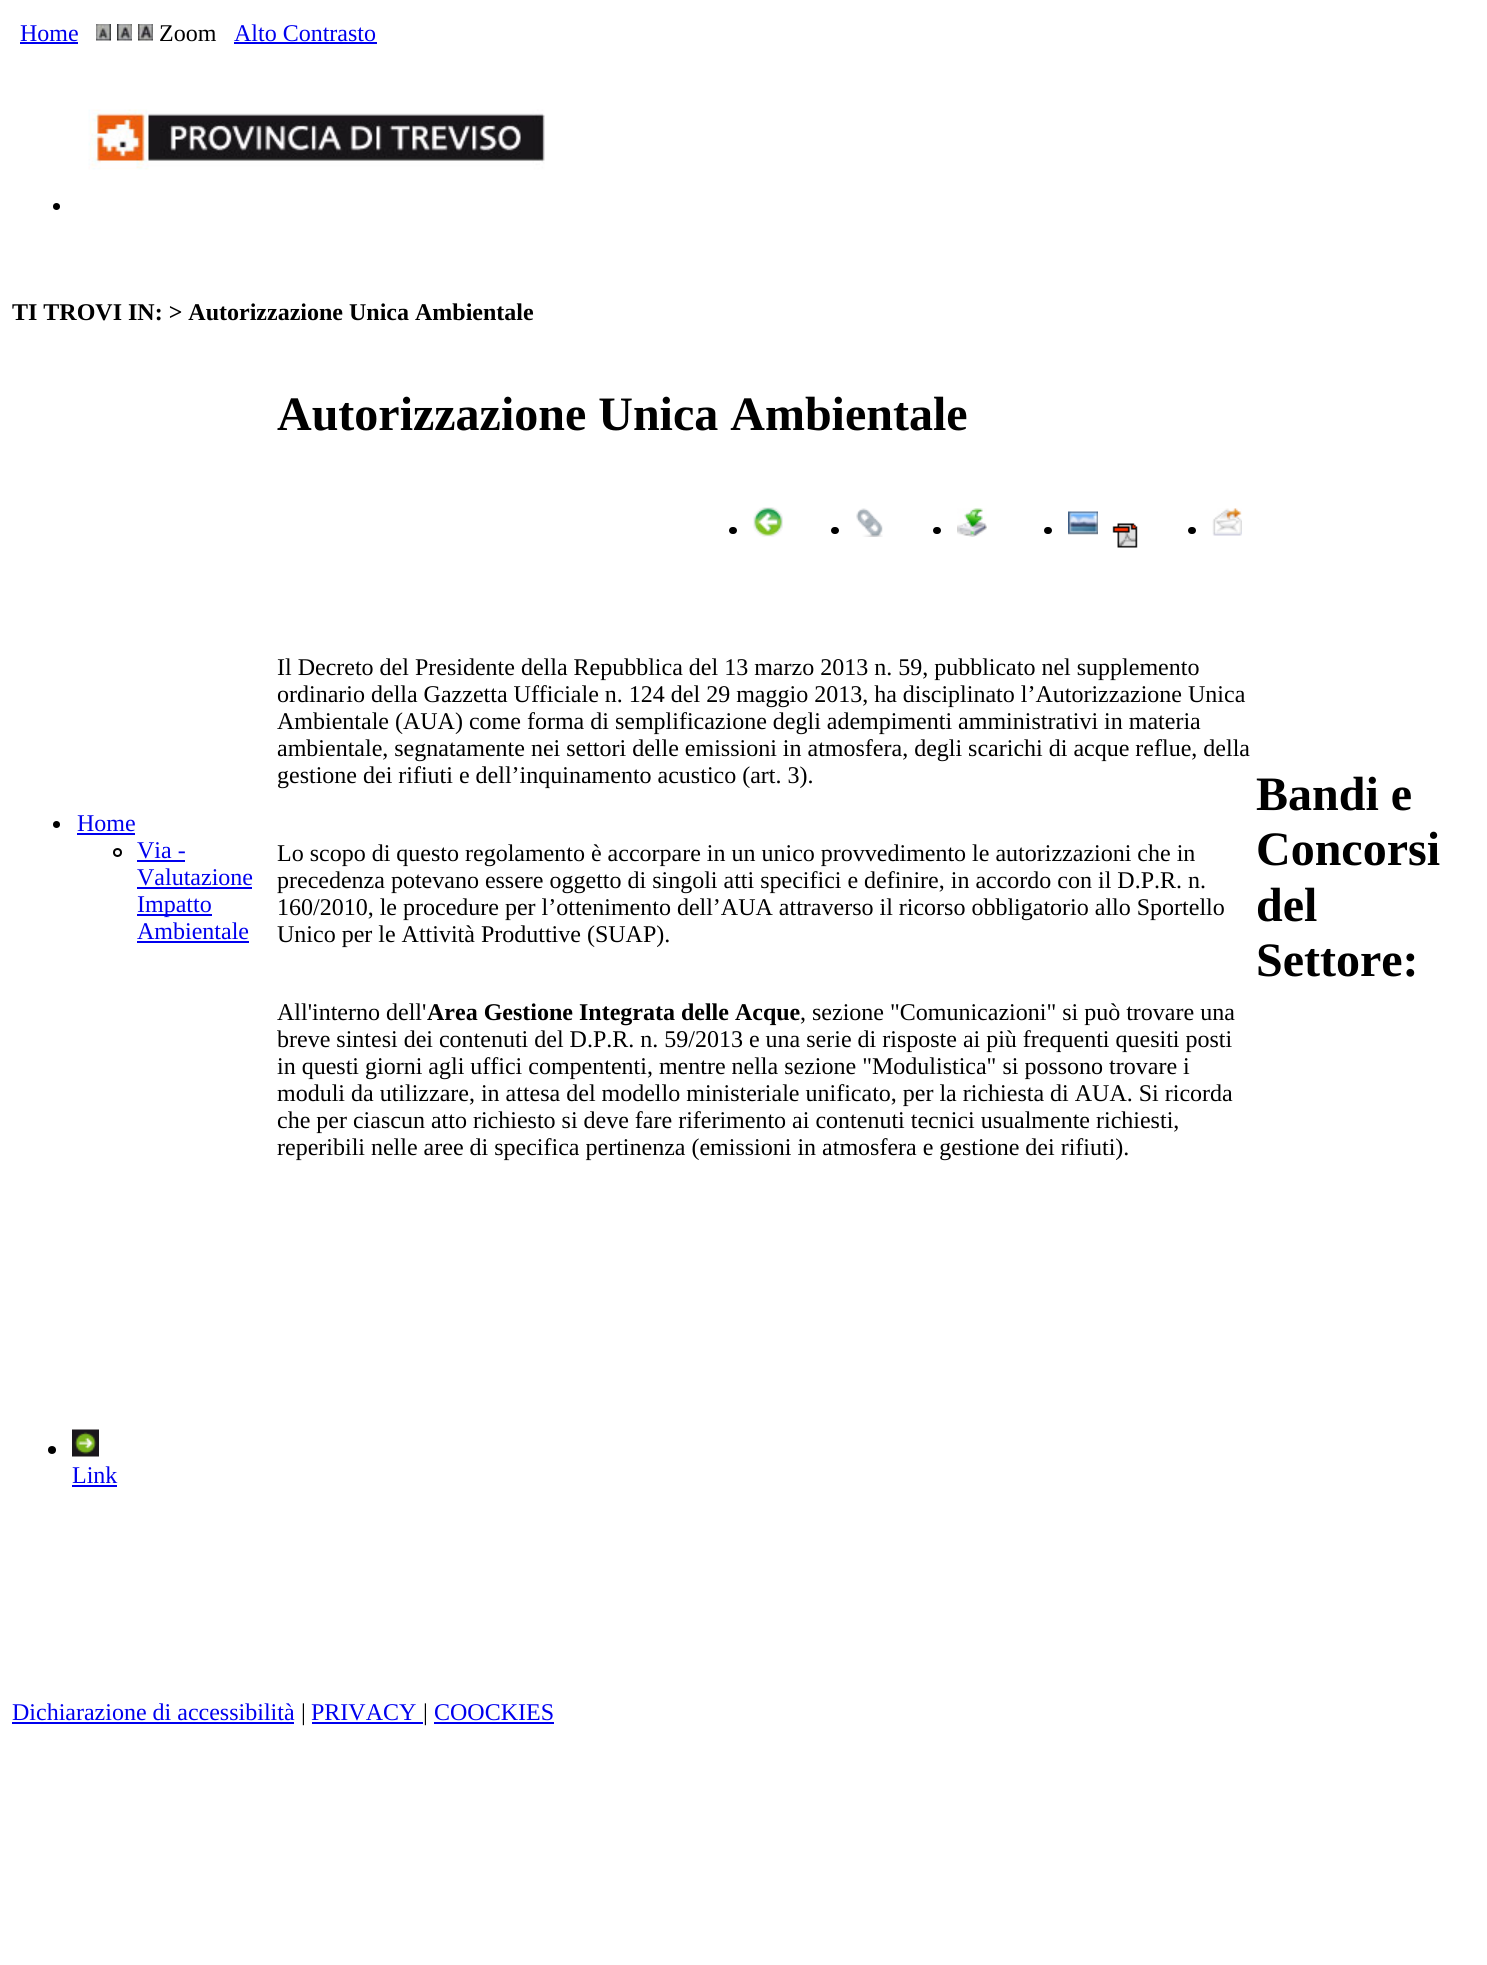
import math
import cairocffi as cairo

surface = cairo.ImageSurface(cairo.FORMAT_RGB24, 1487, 1965)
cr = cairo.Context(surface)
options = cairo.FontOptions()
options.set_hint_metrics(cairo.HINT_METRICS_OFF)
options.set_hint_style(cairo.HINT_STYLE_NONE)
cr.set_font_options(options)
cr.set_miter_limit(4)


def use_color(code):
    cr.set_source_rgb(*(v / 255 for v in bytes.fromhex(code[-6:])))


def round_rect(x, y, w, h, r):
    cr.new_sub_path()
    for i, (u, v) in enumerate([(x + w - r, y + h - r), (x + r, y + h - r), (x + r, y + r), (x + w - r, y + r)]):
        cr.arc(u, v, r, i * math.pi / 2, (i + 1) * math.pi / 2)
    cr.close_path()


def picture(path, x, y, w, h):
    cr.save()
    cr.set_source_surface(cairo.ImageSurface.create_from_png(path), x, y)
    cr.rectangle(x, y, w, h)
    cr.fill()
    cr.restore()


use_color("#ffffff")
cr.paint()
cr.select_font_face("Liberation Serif")
cr.set_font_size(24)
use_color("#0000ee")
cr.move_to(20, 41)
cr.show_text("Home")
cr.rectangle(20, 42, 58, 2)
cr.fill()
picture("img1.png", 96, 24, 15, 17)
picture("img2.png", 117, 24, 15, 17)
picture("img3.png", 138, 24, 15, 17)
use_color("#000000")
cr.move_to(159, 41)
cr.show_text("Zoom")
use_color("#0000ee")
cr.move_to(234, 41)
cr.show_text("Alto Contrasto")
cr.rectangle(234, 42, 143, 2)
cr.fill()
picture("img4.png", 88, 109, 457, 61)
use_color("#000000")
cr.arc(56.5, 206.5, 3.5, 0, 2 * math.pi)
cr.fill()
cr.select_font_face("Liberation Serif", cairo.FONT_SLANT_NORMAL, cairo.FONT_WEIGHT_BOLD)
cr.move_to(12, 320)
cr.show_text("TI TROVI IN: > Autorizzazione Unica Ambientale")
cr.new_path()
cr.arc(56.5, 824.5, 3.5, 0, 2 * math.pi)
cr.fill()
cr.select_font_face("Liberation Serif")
use_color("#0000ee")
cr.move_to(77, 831)
cr.show_text("Home")
cr.rectangle(77, 833, 58, 2)
cr.fill()
cr.arc(117.5, 852.5, 3.5, 0, 2 * math.pi)
use_color("#000000")
cr.stroke()
use_color("#0000ee")
cr.move_to(137, 858)
cr.show_text("Via -")
cr.rectangle(137, 860, 48, 2)
cr.fill()
cr.move_to(137, 885)
cr.show_text("Valutazione")
cr.rectangle(137, 887, 115, 2)
cr.fill()
cr.rectangle(137, 914, 75, 2)
cr.fill()
cr.move_to(137, 912)
cr.show_text("Impatto")
cr.move_to(137, 939)
cr.show_text("Ambientale")
cr.rectangle(137, 941, 112, 2)
cr.fill()
cr.select_font_face("Liberation Serif", cairo.FONT_SLANT_NORMAL, cairo.FONT_WEIGHT_BOLD)
cr.set_font_size(48)
use_color("#000000")
cr.move_to(277, 430)
cr.show_text("Autorizzazione Unica Ambientale")
round_rect(729, 527, 8, 7, 3.5)
cr.fill()
picture("img5.png", 753, 507, 30, 30)
round_rect(831, 527, 8, 7, 3.5)
cr.fill()
picture("img6.png", 856, 508, 27, 29)
round_rect(933, 527, 8, 7, 3.5)
cr.fill()
picture("img7.png", 957, 508, 30, 29)
round_rect(1044, 527, 8, 7, 3.5)
cr.fill()
picture("img8.png", 1068, 511, 30, 24)
picture("img9.png", 1112, 523, 26, 25)
round_rect(1188, 527, 8, 7, 3.5)
cr.fill()
picture("img10.png", 1212, 508, 30, 28)
cr.select_font_face("Liberation Serif")
cr.set_font_size(24)
cr.move_to(277, 675)
cr.show_text("Il Decreto del Presidente della Repubblica del 13 marzo 2013 n. 59, pubblicato nel supplemento")
cr.move_to(277, 702)
cr.show_text("ordinario della Gazzetta Ufficiale n. 124 del 29 maggio 2013, ha disciplinato l’Autorizzazione Unica")
cr.move_to(277, 729)
cr.show_text("Ambientale (AUA) come forma di semplificazione degli adempimenti amministrativi in materia")
cr.move_to(277, 756)
cr.show_text("ambientale, segnatamente nei settori delle emissioni in atmosfera, degli scarichi di acque reflue, della")
cr.move_to(277, 783)
cr.show_text("gestione dei rifiuti e dell’inquinamento acustico (art. 3).")
cr.move_to(277, 861)
cr.show_text("Lo scopo di questo regolamento è accorpare in un unico provvedimento le autorizzazioni che in")
cr.move_to(277, 888)
cr.show_text("precedenza potevano essere oggetto di singoli atti specifici e definire, in accordo con il D.P.R. n.")
cr.move_to(277, 915)
cr.show_text("160/2010, le procedure per l’ottenimento dell’AUA attraverso il ricorso obbligatorio allo Sportello")
cr.move_to(277, 942)
cr.show_text("Unico per le Attività Produttive (SUAP).")
cr.move_to(277, 1020)
cr.show_text("All'interno dell'")
cr.select_font_face("Liberation Serif", cairo.FONT_SLANT_NORMAL, cairo.FONT_WEIGHT_BOLD)
cr.move_to(427, 1020)
cr.show_text("Area Gestione Integrata delle Acque")
cr.select_font_face("Liberation Serif")
cr.move_to(800, 1020)
cr.show_text(", sezione \"Comunicazioni\" si può trovare una")
cr.move_to(277, 1047)
cr.show_text("breve sintesi dei contenuti del D.P.R. n. 59/2013 e una serie di risposte ai più frequenti quesiti posti")
cr.move_to(277, 1074)
cr.show_text("in questi giorni agli uffici compententi, mentre nella sezione \"Modulistica\" si possono trovare i")
cr.move_to(277, 1101)
cr.show_text("moduli da utilizzare, in attesa del modello ministeriale unificato, per la richiesta di AUA. Si ricorda")
cr.move_to(277, 1128)
cr.show_text("che per ciascun atto richiesto si deve fare riferimento ai contenuti tecnici usualmente richiesti,")
cr.move_to(277, 1155)
cr.show_text("reperibili nelle aree di specifica pertinenza (emissioni in atmosfera e gestione dei rifiuti).")
cr.select_font_face("Liberation Serif", cairo.FONT_SLANT_NORMAL, cairo.FONT_WEIGHT_BOLD)
cr.set_font_size(48)
cr.move_to(1256, 810)
cr.show_text("Bandi e")
cr.move_to(1256, 865)
cr.show_text("Concorsi")
cr.move_to(1256, 921)
cr.show_text("del")
cr.move_to(1256, 976)
cr.show_text("Settore:")
cr.new_path()
cr.arc(52, 1450, 4, 0, 2 * math.pi)
cr.fill()
picture("img11.png", 72, 1429, 27, 28)
cr.select_font_face("Liberation Serif")
cr.set_font_size(24)
use_color("#0000ee")
cr.move_to(72, 1483)
cr.show_text("Link")
cr.rectangle(72, 1485, 45, 2)
cr.fill()
cr.move_to(12, 1720)
cr.show_text("Dichiarazione di accessibilità")
cr.rectangle(12, 1722, 282, 2)
cr.fill()
use_color("#000000")
cr.move_to(301, 1720)
cr.show_text("|")
use_color("#0000ee")
cr.move_to(311, 1720)
cr.show_text("PRIVACY")
cr.rectangle(312, 1722, 111, 2)
cr.fill()
use_color("#000000")
cr.move_to(423, 1720)
cr.show_text("|")
use_color("#0000ee")
cr.move_to(434, 1720)
cr.show_text("COOCKIES")
cr.rectangle(434, 1722, 120, 2)
cr.fill()
surface.write_to_png("result.png")
